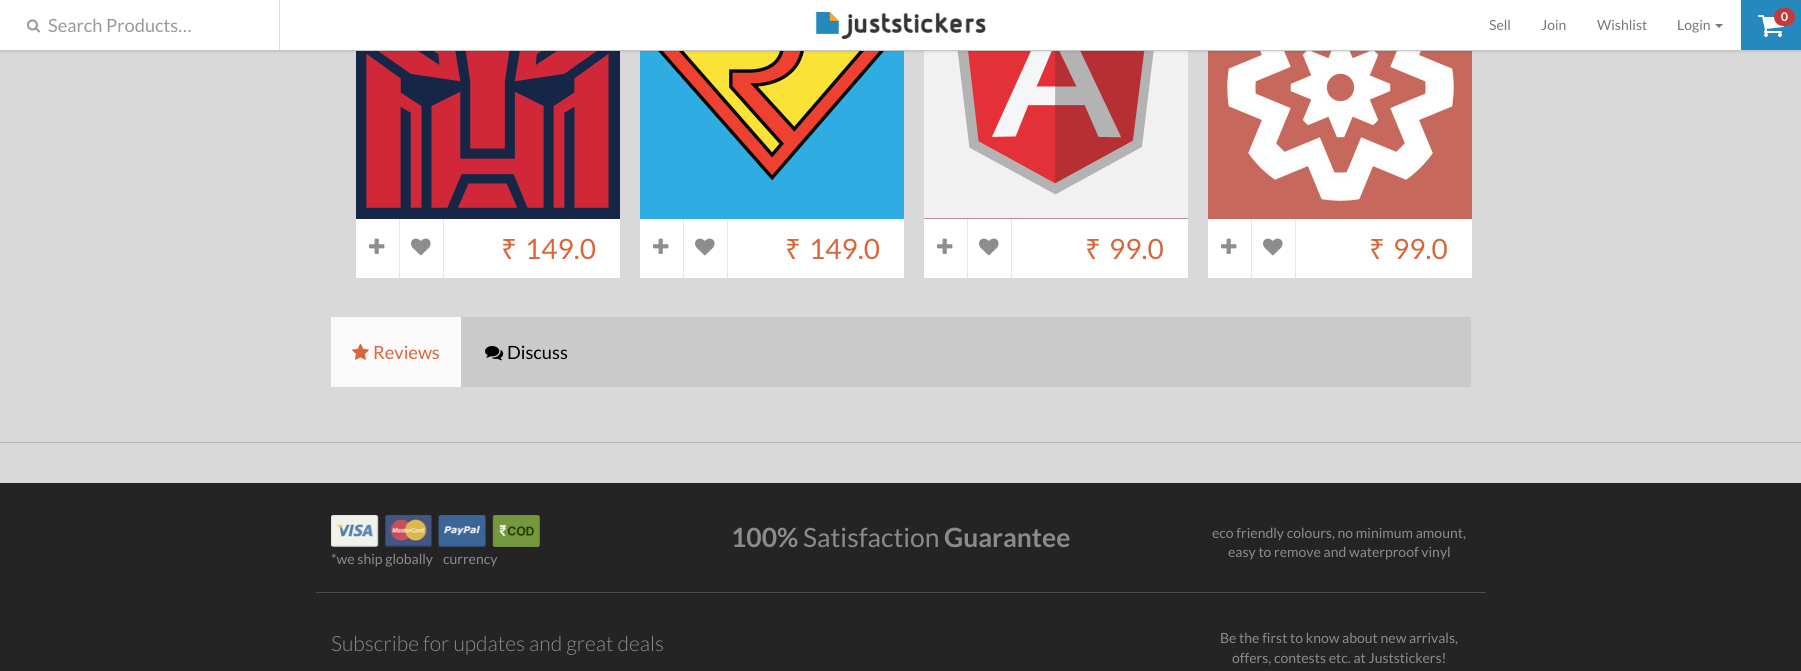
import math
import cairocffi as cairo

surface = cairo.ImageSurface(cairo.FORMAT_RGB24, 1801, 671)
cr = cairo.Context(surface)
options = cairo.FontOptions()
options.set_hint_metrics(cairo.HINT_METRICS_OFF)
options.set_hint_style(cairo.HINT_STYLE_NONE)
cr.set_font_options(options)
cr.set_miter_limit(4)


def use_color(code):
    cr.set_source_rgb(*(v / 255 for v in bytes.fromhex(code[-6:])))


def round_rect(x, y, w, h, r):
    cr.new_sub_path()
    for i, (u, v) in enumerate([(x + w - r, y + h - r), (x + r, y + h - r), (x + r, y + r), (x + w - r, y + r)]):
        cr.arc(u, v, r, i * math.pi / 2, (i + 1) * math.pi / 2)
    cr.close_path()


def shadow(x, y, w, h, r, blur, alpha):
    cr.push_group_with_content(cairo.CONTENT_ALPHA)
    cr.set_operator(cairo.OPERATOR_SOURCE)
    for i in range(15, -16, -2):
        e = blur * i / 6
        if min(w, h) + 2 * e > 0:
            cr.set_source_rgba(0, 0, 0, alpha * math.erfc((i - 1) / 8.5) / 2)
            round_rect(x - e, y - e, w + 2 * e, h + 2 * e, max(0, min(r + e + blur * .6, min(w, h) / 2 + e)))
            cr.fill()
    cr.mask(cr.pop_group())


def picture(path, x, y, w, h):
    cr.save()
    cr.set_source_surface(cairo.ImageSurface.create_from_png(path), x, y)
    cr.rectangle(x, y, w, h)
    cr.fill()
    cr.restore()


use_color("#d9d9d9")
cr.paint()
picture("img6.png", 356, 51, 264, 168)
picture("img7.png", 640, 51, 264, 168)
picture("img8.png", 924, 51, 264, 168)
picture("img9.png", 1208, 51, 264, 168)
use_color("#000000")
shadow(0, 1, 1801, 51, 0, 1, 0.1)
use_color("#ffffff")
cr.rectangle(0, 0, 1741, 50)
cr.fill()
use_color("#c5c5c5")
cr.rectangle(0, 50, 1801, 1)
cr.fill()
picture("img1.png", 815, 12, 171, 27)
use_color("#2589bd")
cr.rectangle(1741, 0, 60, 50)
cr.fill()
picture("img2.png", 1758, 15, 26, 22)
use_color("#c43939")
round_rect(1774, 8, 21, 18, 9)
cr.fill()
cr.select_font_face("Lato", cairo.FONT_SLANT_NORMAL, cairo.FONT_WEIGHT_BOLD)
cr.set_font_size(12)
use_color("#ffffff")
cr.move_to(1781, 21)
cr.show_text("0")
use_color("#dadada")
cr.rectangle(279, 0, 1, 50)
cr.fill()
picture("img3.png", 27, 19, 13, 14)
cr.select_font_face("Lato")
cr.set_font_size(18.25)
use_color("#999999")
cr.move_to(48, 32)
cr.show_text("Search Products…")
cr.set_font_size(14)
use_color("#777777")
cr.move_to(1489, 30)
cr.show_text("Sell")
cr.move_to(1541, 30)
cr.show_text("Join")
cr.move_to(1597, 30)
cr.show_text("Wishlist")
cr.move_to(1677, 30)
cr.show_text("Login")
cr.new_path()
cr.move_to(1715, 24)
cr.line_to(1723, 24)
cr.line_to(1719, 28)
cr.close_path()
cr.fill()
use_color("#ffffff")
cr.rectangle(356, 219, 264, 59)
cr.fill()
use_color("#e7e7e7")
cr.rectangle(399, 219, 1, 59)
cr.fill()
picture("img4.png", 369, 238, 16, 16)
cr.rectangle(443, 219, 1, 59)
cr.fill()
picture("img5.png", 411, 238, 20, 18)
cr.select_font_face("Noto Sans")
cr.set_font_size(28)
use_color("#d9673b")
cr.move_to(501, 259)
cr.show_text("₹")
cr.select_font_face("Lato")
cr.move_to(525, 259)
cr.show_text("149.0")
use_color("#ffffff")
cr.rectangle(640, 219, 264, 59)
cr.fill()
use_color("#e7e7e7")
cr.rectangle(683, 219, 1, 59)
cr.fill()
picture("img4.png", 653, 238, 16, 16)
cr.rectangle(727, 219, 1, 59)
cr.fill()
picture("img5.png", 695, 238, 20, 18)
cr.select_font_face("Noto Sans")
use_color("#d9673b")
cr.move_to(785, 259)
cr.show_text("₹")
cr.select_font_face("Lato")
cr.move_to(809, 259)
cr.show_text("149.0")
use_color("#ffffff")
cr.rectangle(924, 219, 264, 59)
cr.fill()
use_color("#e7e7e7")
cr.rectangle(967, 219, 1, 59)
cr.fill()
picture("img4.png", 937, 238, 16, 16)
cr.rectangle(1011, 219, 1, 59)
cr.fill()
picture("img5.png", 979, 238, 20, 18)
cr.select_font_face("Noto Sans")
use_color("#d9673b")
cr.move_to(1085, 259)
cr.show_text("₹")
cr.select_font_face("Lato")
cr.move_to(1109, 259)
cr.show_text("99.0")
use_color("#ffffff")
cr.rectangle(1208, 219, 264, 59)
cr.fill()
use_color("#e7e7e7")
cr.rectangle(1251, 219, 1, 59)
cr.fill()
picture("img4.png", 1221, 238, 16, 16)
cr.rectangle(1295, 219, 1, 59)
cr.fill()
picture("img5.png", 1263, 238, 20, 18)
cr.select_font_face("Noto Sans")
use_color("#d9673b")
cr.move_to(1369, 259)
cr.show_text("₹")
cr.select_font_face("Lato")
cr.move_to(1393, 259)
cr.show_text("99.0")
use_color("#cacaca")
cr.rectangle(461, 317, 1010, 70)
cr.fill()
use_color("#fafafa")
cr.rectangle(331, 317, 130, 70)
cr.fill()
picture("img10.png", 352, 343, 17, 17)
cr.set_font_size(18.25)
use_color("#d9673b")
cr.move_to(373, 359)
cr.show_text("Reviews")
picture("img11.png", 485, 346, 19, 15)
use_color("#000000")
cr.move_to(507, 359)
cr.show_text("Discuss")
use_color("#b6b6b6")
cr.rectangle(0, 442, 1801, 1)
cr.fill()
use_color("#242424")
cr.rectangle(0, 483, 1801, 188)
cr.fill()
use_color("#4d4d4d")
cr.rectangle(316, 592, 1170, 1)
cr.fill()
picture("img12.png", 331, 515, 209, 32)
cr.set_font_size(14)
use_color("#8b8b8b")
cr.move_to(331, 564)
cr.show_text("*we ship globally")
cr.move_to(443, 564)
cr.show_text("currency")
cr.select_font_face("Lato", cairo.FONT_SLANT_NORMAL, cairo.FONT_WEIGHT_BOLD)
cr.set_font_size(26.5)
cr.move_to(731, 547)
cr.show_text("100%")
cr.select_font_face("Lato")
cr.move_to(803, 547)
cr.show_text("Satisfaction")
cr.select_font_face("Lato", cairo.FONT_SLANT_NORMAL, cairo.FONT_WEIGHT_BOLD)
cr.move_to(944, 547)
cr.show_text("Guarantee")
cr.select_font_face("Lato")
cr.set_font_size(14)
cr.move_to(1212, 538)
cr.show_text("eco friendly colours, no minimum amount,")
cr.move_to(1228, 557)
cr.show_text("easy to remove and waterproof vinyl")
cr.select_font_face("Lato Light")
cr.set_font_size(21)
cr.move_to(331, 651)
cr.show_text("Subscribe for updates and great deals")
cr.select_font_face("Lato")
cr.set_font_size(14)
cr.move_to(1220, 643)
cr.show_text("Be the first to know about new arrivals,")
cr.move_to(1232, 663)
cr.show_text("offers, contests etc. at Juststickers!")
surface.write_to_png("result.png")
